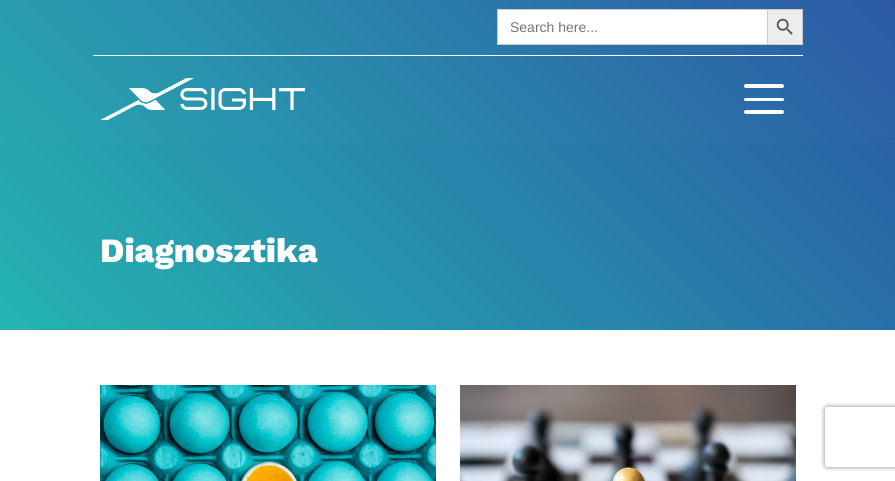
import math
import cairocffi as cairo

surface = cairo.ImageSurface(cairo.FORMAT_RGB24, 895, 481)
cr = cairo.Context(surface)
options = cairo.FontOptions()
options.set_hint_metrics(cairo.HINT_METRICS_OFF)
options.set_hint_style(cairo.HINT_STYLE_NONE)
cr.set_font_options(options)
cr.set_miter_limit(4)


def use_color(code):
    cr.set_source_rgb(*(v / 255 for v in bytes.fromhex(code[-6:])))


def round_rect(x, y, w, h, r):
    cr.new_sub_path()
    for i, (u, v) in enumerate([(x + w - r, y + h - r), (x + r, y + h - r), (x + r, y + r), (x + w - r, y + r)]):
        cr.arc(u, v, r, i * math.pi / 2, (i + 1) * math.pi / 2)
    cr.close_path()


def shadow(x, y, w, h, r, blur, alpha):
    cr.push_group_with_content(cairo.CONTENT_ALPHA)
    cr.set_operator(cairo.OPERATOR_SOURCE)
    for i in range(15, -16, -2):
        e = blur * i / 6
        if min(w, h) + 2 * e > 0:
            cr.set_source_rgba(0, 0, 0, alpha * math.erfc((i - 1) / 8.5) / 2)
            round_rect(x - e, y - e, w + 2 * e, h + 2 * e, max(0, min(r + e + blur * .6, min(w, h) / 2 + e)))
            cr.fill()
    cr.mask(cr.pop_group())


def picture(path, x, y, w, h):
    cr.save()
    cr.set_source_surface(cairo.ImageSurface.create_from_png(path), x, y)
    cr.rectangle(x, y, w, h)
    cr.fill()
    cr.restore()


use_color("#ffffff")
cr.paint()
gradient = cairo.LinearGradient(141, 471, 754, -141)
gradient.add_color_stop_rgba(0, 0.153, 0.71, 0.698, 1)
gradient.add_color_stop_rgba(1, 0.173, 0.349, 0.647, 1)
cr.set_source(gradient)
cr.rectangle(0, 55, 895, 88)
cr.fill()
use_color("#ffffff")
cr.rectangle(93, 55, 710, 1)
cr.fill()
gradient = cairo.LinearGradient(141, 471, 754, -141)
gradient.add_color_stop_rgba(0, 0.153, 0.71, 0.698, 1)
gradient.add_color_stop_rgba(1, 0.173, 0.349, 0.647, 1)
cr.set_source(gradient)
cr.rectangle(0, 0, 895, 55)
cr.fill()
use_color("#ffffff")
cr.rectangle(498, 10, 269, 34)
cr.fill()
use_color("#cccccc")
cr.rectangle(497, 9, 270, 1)
cr.fill()
cr.rectangle(497, 44, 270, 1)
cr.fill()
cr.rectangle(497, 9, 1, 36)
cr.fill()
cr.select_font_face("Liberation Sans")
cr.set_font_size(14)
use_color("#757575")
cr.move_to(510, 32)
cr.show_text("Search here...")
use_color("#ededed")
cr.rectangle(767.5, 9.5, 35, 35)
cr.fill_preserve()
use_color("#cccccc")
cr.set_line_width(1)
cr.stroke()
picture("img1.png", 776, 18, 17, 17)
picture("img2.png", 100, 78, 205, 42)
use_color("#ffffff")
round_rect(744, 84, 40, 4, 2)
cr.fill()
round_rect(744, 98, 40, 3, 1.5)
cr.fill()
round_rect(744, 110, 40, 4, 2)
cr.fill()
gradient = cairo.LinearGradient(141, 471, 754, -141)
gradient.add_color_stop_rgba(0, 0.145, 0.706, 0.694, 1)
gradient.add_color_stop_rgba(1, 0.165, 0.341, 0.643, 1)
cr.set_source(gradient)
cr.rectangle(0, 143, 895, 187)
cr.fill()
cr.select_font_face("Work Sans ExtraBold")
cr.set_font_size(34)
use_color("#ffffff")
cr.move_to(100, 262)
cr.show_text("Diagnosztika")
picture("img3.png", 100, 385, 336, 96)
picture("img4.png", 460, 385, 336, 96)
cr.save()
cr.set_fill_rule(cairo.FILL_RULE_EVEN_ODD)
cr.new_path()
cr.move_to(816, 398)
cr.line_to(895, 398)
cr.line_to(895, 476)
cr.line_to(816, 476)
cr.close_path()
cr.move_to(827, 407)
cr.line_to(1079, 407)
cr.curve_to(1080, 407, 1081, 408, 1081, 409)
cr.line_to(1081, 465)
cr.curve_to(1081, 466, 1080, 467, 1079, 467)
cr.line_to(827, 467)
cr.curve_to(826, 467, 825, 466, 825, 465)
cr.line_to(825, 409)
cr.curve_to(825, 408, 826, 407, 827, 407)
cr.close_path()
cr.clip()
use_color("#808080")
shadow(825, 407, 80, 60, 2, 2.5, 1)
cr.restore()
surface.write_to_png("result.png")
